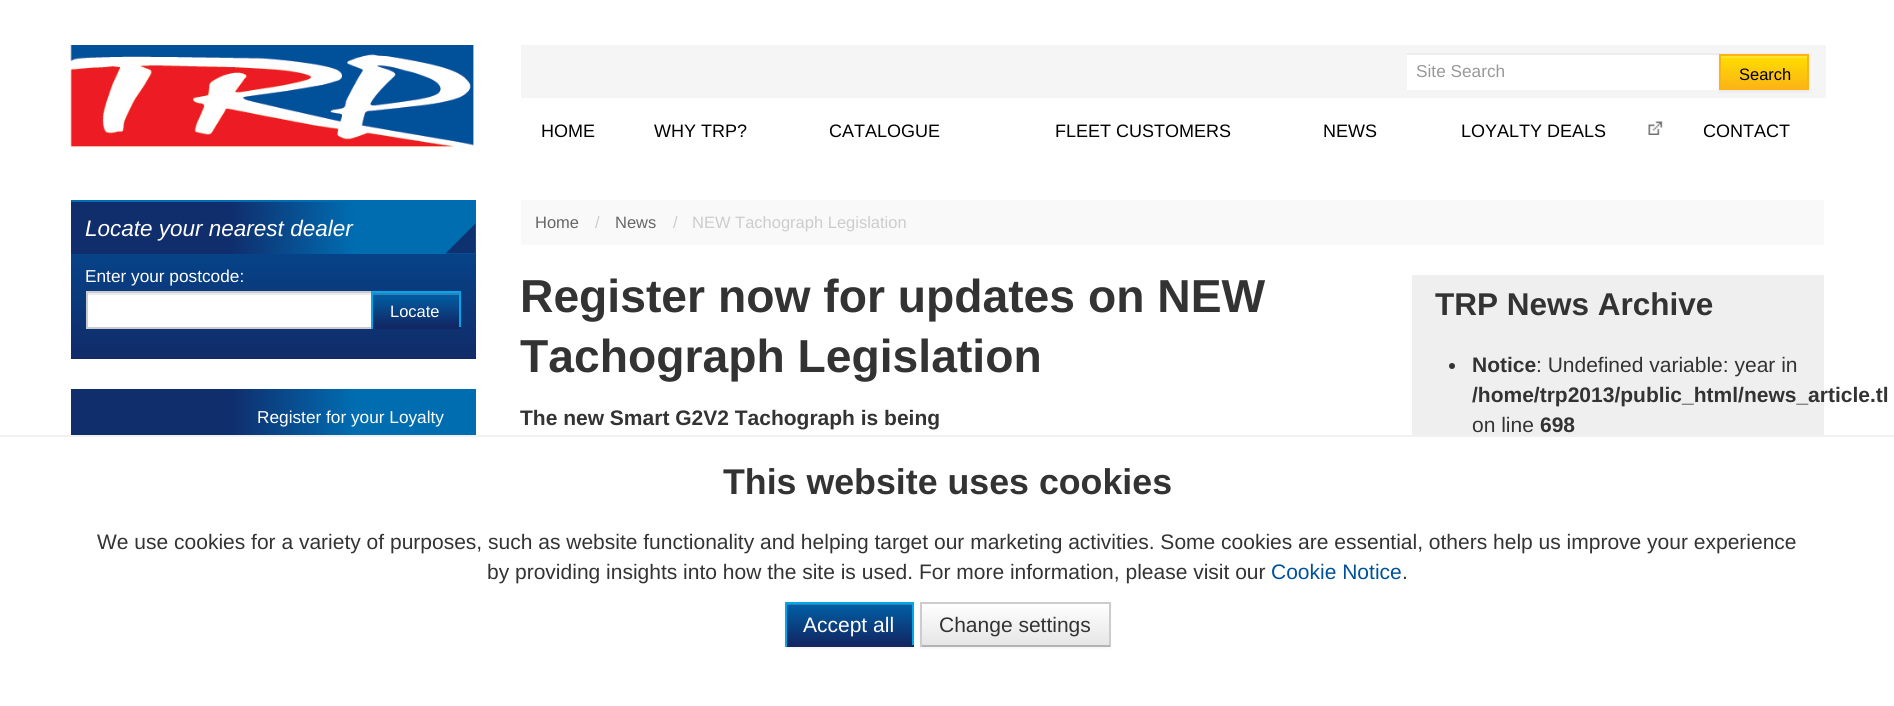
import math
import cairocffi as cairo

surface = cairo.ImageSurface(cairo.FORMAT_RGB24, 1894, 706)
cr = cairo.Context(surface)
options = cairo.FontOptions()
options.set_hint_metrics(cairo.HINT_METRICS_OFF)
options.set_hint_style(cairo.HINT_STYLE_NONE)
cr.set_font_options(options)
cr.set_miter_limit(4)


def use_color(code):
    cr.set_source_rgb(*(v / 255 for v in bytes.fromhex(code[-6:])))


def round_rect(x, y, w, h, r):
    cr.new_sub_path()
    for i, (u, v) in enumerate([(x + w - r, y + h - r), (x + r, y + h - r), (x + r, y + r), (x + w - r, y + r)]):
        cr.arc(u, v, r, i * math.pi / 2, (i + 1) * math.pi / 2)
    cr.close_path()


def shadow(x, y, w, h, r, blur, alpha):
    cr.push_group_with_content(cairo.CONTENT_ALPHA)
    cr.set_operator(cairo.OPERATOR_SOURCE)
    for i in range(15, -16, -2):
        e = blur * i / 6
        if min(w, h) + 2 * e > 0:
            cr.set_source_rgba(0, 0, 0, alpha * math.erfc((i - 1) / 8.5) / 2)
            round_rect(x - e, y - e, w + 2 * e, h + 2 * e, max(0, min(r + e + blur * .6, min(w, h) / 2 + e)))
            cr.fill()
    cr.mask(cr.pop_group())


def picture(path, x, y, w, h):
    cr.save()
    cr.set_source_surface(cairo.ImageSurface.create_from_png(path), x, y)
    cr.rectangle(x, y, w, h)
    cr.fill()
    cr.restore()


use_color("#ffffff")
cr.paint()
picture("img1.png", 70, 45, 404, 102)
use_color("#f5f5f5")
cr.rectangle(521, 45, 1305, 53)
cr.fill()
use_color("#ffffff")
cr.rectangle(1407, 55, 312, 35)
cr.fill()
use_color("#ececec")
cr.rectangle(1407, 53, 402, 2)
cr.fill()
cr.select_font_face("Liberation Sans")
cr.set_font_size(17.25)
use_color("#999999")
cr.move_to(1416, 77)
cr.show_text("Site Search")
use_color("#000000")
shadow(1719, 56, 90, 36, 0, 1.5, 0.05)
gradient = cairo.LinearGradient(1764, 56, 1764, 89)
gradient.add_color_stop_rgba(0, 0.996, 0.871, 0, 1)
gradient.add_color_stop_rgba(1, 0.988, 0.702, 0.086, 1)
cr.set_source(gradient)
cr.rectangle(1721, 58, 86, 30)
cr.fill()
use_color("#fee333")
cr.rectangle(1721, 56, 87, 2)
cr.fill()
cr.rectangle(1720, 55, 88, 34)
use_color("#fdb314")
cr.stroke()
cr.set_font_size(16.5)
use_color("#000000")
cr.move_to(1739, 80)
cr.show_text("Search")
cr.set_font_size(18)
cr.move_to(541, 137)
cr.show_text("HOME")
cr.move_to(654, 137)
cr.show_text("WHY TRP?")
cr.move_to(829, 137)
cr.show_text("CATALOGUE")
cr.move_to(1055, 137)
cr.show_text("FLEET CUSTOMERS")
cr.move_to(1323, 137)
cr.show_text("NEWS")
cr.move_to(1461, 137)
cr.show_text("LOYALTY DEALS")
picture("img2.png", 1648, 121, 15, 14)
cr.move_to(1703, 137)
cr.show_text("CONTACT")
gradient = cairo.LinearGradient(273, 200, 273, 359)
gradient.add_color_stop_rgba(0, 0.004, 0.31, 0.6, 1)
gradient.add_color_stop_rgba(1, 0.067, 0.169, 0.408, 1)
cr.set_source(gradient)
cr.rectangle(71, 254, 405, 105)
cr.fill()
gradient = cairo.LinearGradient(71, 201, 476, 201)
gradient.add_color_stop_rgba(0.39, 0.063, 0.176, 0.424, 1)
gradient.add_color_stop_rgba(0.7, 0, 0.427, 0.694, 1)
cr.set_source(gradient)
cr.rectangle(71, 202, 405, 52)
cr.fill()
use_color("#006cb4")
cr.rectangle(71, 200, 405, 2)
cr.fill()
cr.select_font_face("Liberation Sans", cairo.FONT_SLANT_ITALIC)
cr.set_font_size(22.5)
use_color("#ffffff")
cr.move_to(85, 236)
cr.show_text("Locate your nearest dealer")
use_color("#0e3170")
cr.new_path()
cr.move_to(475.5, 253.5)
cr.line_to(445.5, 253.5)
cr.line_to(475.5, 223.5)
cr.close_path()
cr.fill()
cr.select_font_face("Liberation Sans")
cr.set_font_size(17.25)
use_color("#ffffff")
cr.move_to(85, 282)
cr.show_text("Enter your postcode:")
cr.rectangle(88, 295, 283, 32)
cr.fill()
use_color("#ececec")
cr.rectangle(87, 293, 284, 2)
cr.fill()
cr.rectangle(87, 292, 373, 36)
use_color("#cccccc")
cr.stroke()
gradient = cairo.LinearGradient(416, 293, 416, 327)
gradient.add_color_stop_rgba(0, 0, 0.38, 0.659, 1)
gradient.add_color_stop_rgba(1, 0.071, 0.149, 0.388, 1)
cr.set_source(gradient)
cr.rectangle(373, 295, 86, 32)
cr.fill()
use_color("#337fb8")
cr.rectangle(372, 293, 87, 2)
cr.fill()
use_color("#00a8e9")
cr.rectangle(371, 291, 90, 2)
cr.fill()
cr.rectangle(459, 291, 2, 38)
cr.fill()
use_color("#132764")
cr.rectangle(371, 327, 90, 2)
cr.fill()
use_color("#00a8e9")
cr.rectangle(371, 291, 2, 38)
cr.fill()
cr.set_font_size(16.5)
use_color("#ffffff")
cr.move_to(390, 317)
cr.show_text("Locate")
gradient = cairo.LinearGradient(71, 389, 476, 389)
gradient.add_color_stop_rgba(0.39, 0.063, 0.176, 0.424, 1)
gradient.add_color_stop_rgba(0.7, 0, 0.427, 0.694, 1)
cr.set_source(gradient)
cr.rectangle(71, 389, 405, 46)
cr.fill()
cr.set_font_size(17.25)
use_color("#ffffff")
cr.move_to(257, 423)
cr.show_text("Register for your Loyalty")
use_color("#f9f9f9")
cr.rectangle(521, 200, 1303, 45)
cr.fill()
cr.set_font_size(16.5)
use_color("#666666")
cr.move_to(535, 228)
cr.show_text("Home")
use_color("#cccccc")
cr.move_to(595, 228)
cr.show_text("/")
use_color("#666666")
cr.move_to(615, 228)
cr.show_text("News")
use_color("#cccccc")
cr.move_to(673, 228)
cr.show_text("/")
cr.move_to(692, 228)
cr.show_text("NEW Tachograph Legislation")
cr.select_font_face("Liberation Sans", cairo.FONT_SLANT_NORMAL, cairo.FONT_WEIGHT_BOLD)
cr.set_font_size(46.25)
use_color("#333333")
cr.move_to(520, 312)
cr.show_text("Register now for updates on NEW")
cr.move_to(520, 372)
cr.show_text("Tachograph Legislation")
cr.set_font_size(21)
cr.move_to(520, 425)
cr.show_text("The new Smart G2V2 Tachograph is being")
use_color("#efefef")
cr.rectangle(1412, 275, 412, 160)
cr.fill()
cr.set_font_size(31.5)
use_color("#333333")
cr.move_to(1435, 315)
cr.show_text("TRP News Archive")
cr.new_path()
cr.arc(1452, 366, 3, 0, 2 * math.pi)
cr.fill()
cr.set_font_size(21)
cr.move_to(1472, 372)
cr.show_text("Notice")
cr.select_font_face("Liberation Sans")
cr.move_to(1536, 372)
cr.show_text(": Undefined variable: year in")
cr.select_font_face("Liberation Sans", cairo.FONT_SLANT_NORMAL, cairo.FONT_WEIGHT_BOLD)
cr.move_to(1472, 402)
cr.show_text("/home/trp2013/public_html/news_article.tl")
cr.select_font_face("Liberation Sans")
cr.move_to(1472, 432)
cr.show_text("on line")
cr.select_font_face("Liberation Sans", cairo.FONT_SLANT_NORMAL, cairo.FONT_WEIGHT_BOLD)
cr.move_to(1540, 432)
cr.show_text("698")
use_color("#f1f1f1")
cr.rectangle(0, 435, 1894, 2)
cr.fill()
cr.set_font_size(35.75)
use_color("#333333")
cr.move_to(723, 494)
cr.show_text("This website uses cookies")
cr.select_font_face("Liberation Sans")
cr.set_font_size(21)
cr.move_to(97, 549)
cr.show_text("We use cookies for a variety of purposes, such as website functionality and helping target our marketing activities. Some cookies are essential, others help us improve your experience")
cr.move_to(487, 579)
cr.show_text("by providing insights into how the site is used. For more information, please visit our")
use_color("#00519a")
cr.move_to(1271, 579)
cr.show_text("Cookie Notice")
use_color("#333333")
cr.move_to(1402, 579)
cr.show_text(".")
use_color("#000000")
shadow(785, 603, 129, 45, 0, 1.5, 0.05)
gradient = cairo.LinearGradient(849, 603, 849, 645)
gradient.add_color_stop_rgba(0, 0, 0.38, 0.659, 1)
gradient.add_color_stop_rgba(1, 0.071, 0.149, 0.388, 1)
cr.set_source(gradient)
cr.rectangle(787, 605, 125, 40)
cr.fill()
use_color("#337fb8")
cr.rectangle(786, 604, 126, 1)
cr.fill()
use_color("#00a8e9")
cr.rectangle(785, 602, 129, 2)
cr.fill()
cr.rectangle(912, 602, 2, 45)
cr.fill()
use_color("#132764")
cr.rectangle(785, 645, 129, 2)
cr.fill()
use_color("#00a8e9")
cr.rectangle(785, 602, 2, 45)
cr.fill()
use_color("#ffffff")
cr.move_to(803, 632)
cr.show_text("Accept all")
use_color("#000000")
shadow(920, 603, 190, 45, 0, 1.5, 0.05)
gradient = cairo.LinearGradient(1015, 603, 1015, 645)
gradient.add_color_stop_rgba(0, 1, 1, 1, 1)
gradient.add_color_stop_rgba(1, 0.902, 0.902, 0.902, 1)
cr.set_source(gradient)
cr.rectangle(922, 604, 187, 41)
cr.fill()
use_color("#cccccc")
cr.rectangle(920, 602, 190, 2)
cr.fill()
cr.rectangle(1109, 602, 2, 45)
cr.fill()
use_color("#b3b3b3")
cr.rectangle(920, 645, 190, 2)
cr.fill()
use_color("#cccccc")
cr.rectangle(920, 602, 2, 45)
cr.fill()
use_color("#333333")
cr.move_to(939, 632)
cr.show_text("Change settings")
surface.write_to_png("result.png")
